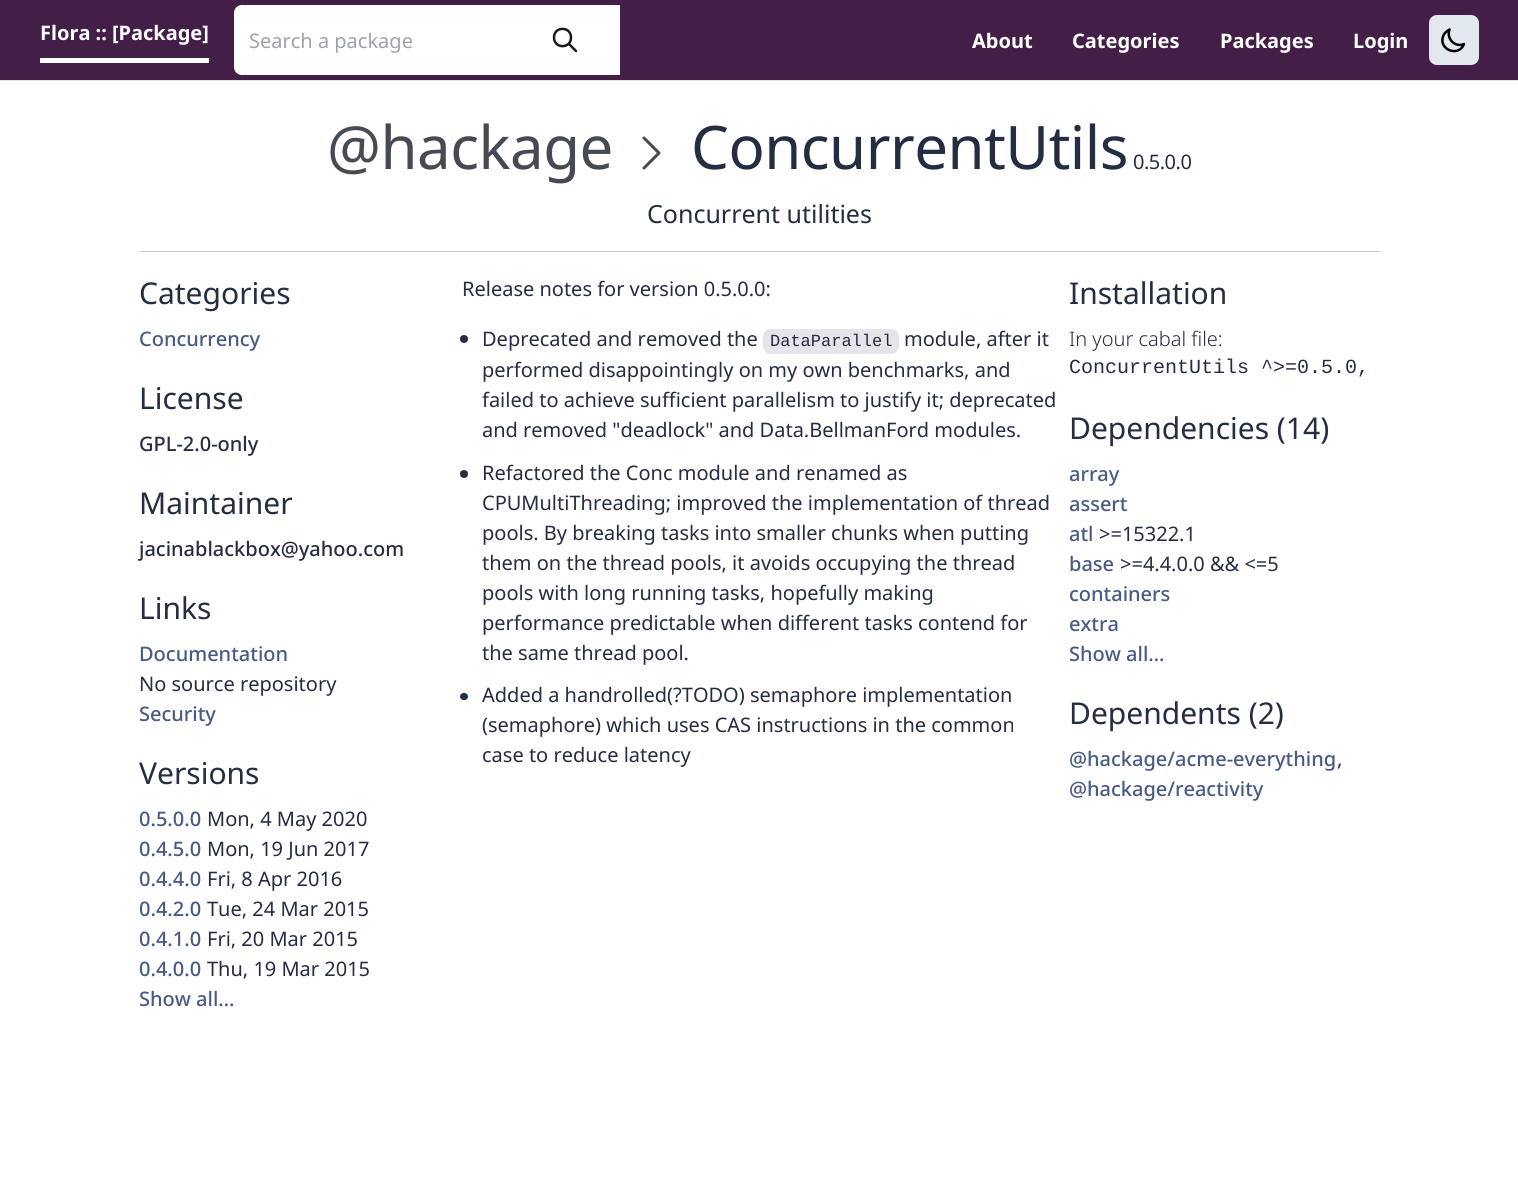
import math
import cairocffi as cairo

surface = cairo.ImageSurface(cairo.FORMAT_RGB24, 1518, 1197)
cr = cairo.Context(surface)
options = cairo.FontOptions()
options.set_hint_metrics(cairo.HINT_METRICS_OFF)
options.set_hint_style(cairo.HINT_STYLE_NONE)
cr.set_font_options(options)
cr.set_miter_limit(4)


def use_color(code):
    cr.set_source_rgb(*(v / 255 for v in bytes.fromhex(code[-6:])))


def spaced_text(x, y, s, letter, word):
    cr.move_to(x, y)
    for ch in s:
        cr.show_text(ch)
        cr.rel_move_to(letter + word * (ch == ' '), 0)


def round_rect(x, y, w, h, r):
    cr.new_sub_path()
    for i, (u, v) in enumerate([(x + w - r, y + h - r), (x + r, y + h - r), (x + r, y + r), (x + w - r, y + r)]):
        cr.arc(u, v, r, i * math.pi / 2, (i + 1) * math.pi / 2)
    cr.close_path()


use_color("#ffffff")
cr.paint()
use_color("#431f47")
cr.rectangle(0, 0, 1518, 80)
cr.fill()
use_color("#e3e5e8")
cr.rectangle(0, 80, 1518, 1)
cr.fill()
use_color("#ffffff")
cr.rectangle(40, 58, 169, 5)
cr.fill()
cr.select_font_face("Noto Sans", cairo.FONT_SLANT_NORMAL, cairo.FONT_WEIGHT_BOLD)
cr.set_font_size(20)
cr.move_to(40, 40)
cr.show_text("Flora :: [Package]")
cr.new_path()
cr.move_to(242, 5)
cr.line_to(620, 5)
cr.line_to(620, 75)
cr.line_to(242, 75)
cr.curve_to(237.5, 75, 234, 71.5, 234, 67)
cr.line_to(234, 13)
cr.curve_to(234, 8.5, 237.5, 5, 242, 5)
cr.close_path()
cr.fill()
cr.select_font_face("Noto Sans")
use_color("#9ca3af")
cr.move_to(249, 48)
cr.show_text("Search a package")
cr.new_path()
cr.move_to(576, 51)
cr.line_to(569, 44)
cr.move_to(571, 37.5)
cr.curve_to(571, 49, 554, 49, 554, 37.5)
cr.curve_to(554, 26, 571, 26, 571, 37.5)
cr.close_path()
use_color("#17191c")
cr.set_line_width(2.5)
cr.set_line_cap(cairo.LINE_CAP_ROUND)
cr.set_line_join(cairo.LINE_JOIN_ROUND)
cr.stroke()
cr.select_font_face("Noto Sans", cairo.FONT_SLANT_NORMAL, cairo.FONT_WEIGHT_BOLD)
use_color("#ffffff")
cr.move_to(972, 48)
cr.show_text("About")
cr.move_to(1072, 48)
cr.show_text("Categories")
cr.move_to(1220, 48)
cr.show_text("Packages")
cr.move_to(1353, 48)
cr.show_text("Login")
use_color("#e2e8f0")
round_rect(1429, 15, 50, 50, 8)
cr.fill()
cr.new_path()
cr.move_to(1464, 44)
cr.curve_to(1455, 48, 1446, 38.5, 1449.5, 29.5)
cr.curve_to(1446.5, 31, 1444, 33.5, 1443, 36.5)
cr.curve_to(1438.5, 50, 1459, 57.5, 1464, 44)
cr.close_path()
use_color("#000000")
cr.stroke()
use_color("#cccccc")
cr.rectangle(140, 251, 1240, 1)
cr.fill()
cr.select_font_face("Noto Sans")
cr.set_font_size(60)
use_color("#464a53")
spaced_text(327, 169, "@hackage", -0.5, 0)
cr.new_path()
cr.move_to(644, 138)
cr.line_to(659, 153)
cr.line_to(644, 168)
cr.set_line_width(3)
cr.stroke()
use_color("#242d42")
spaced_text(691, 169, "ConcurrentUtils", -0.5, 0)
cr.set_font_size(20)
spaced_text(1133, 169, "0.5.0.0", -0.5, 0)
cr.set_font_size(25)
cr.move_to(647, 223)
cr.show_text("Concurrent utilities")
cr.set_font_size(30)
cr.move_to(139, 304)
cr.show_text("Categories")
cr.select_font_face("Noto Sans Medium")
cr.set_font_size(20)
use_color("#475b85")
cr.move_to(139, 346)
cr.show_text("Concurrency")
cr.select_font_face("Noto Sans")
cr.set_font_size(30)
use_color("#242d42")
cr.move_to(139, 409)
cr.show_text("License")
cr.select_font_face("Noto Sans Medium")
cr.set_font_size(20)
cr.move_to(139, 451)
cr.show_text("GPL-2.0-only")
cr.select_font_face("Noto Sans")
cr.set_font_size(30)
cr.move_to(139, 514)
cr.show_text("Maintainer")
cr.select_font_face("Noto Sans Medium")
cr.set_font_size(20)
cr.move_to(139, 556)
cr.show_text("jacinablackbox@yahoo.com")
cr.select_font_face("Noto Sans")
cr.set_font_size(30)
cr.move_to(139, 619)
cr.show_text("Links")
cr.select_font_face("Noto Sans Medium")
cr.set_font_size(20)
use_color("#475b85")
cr.move_to(139, 661)
cr.show_text("Documentation")
cr.select_font_face("Noto Sans")
use_color("#242d42")
cr.move_to(139, 691)
cr.show_text("No source repository")
cr.select_font_face("Noto Sans Medium")
use_color("#475b85")
cr.move_to(139, 721)
cr.show_text("Security")
cr.select_font_face("Noto Sans")
cr.set_font_size(30)
use_color("#242d42")
cr.move_to(139, 784)
cr.show_text("Versions")
cr.select_font_face("Noto Sans Medium")
cr.set_font_size(20)
use_color("#475b85")
cr.move_to(139, 826)
cr.show_text("0.5.0.0")
cr.select_font_face("Noto Sans")
use_color("#242d42")
cr.move_to(207, 826)
cr.show_text("Mon, 4 May 2020")
cr.select_font_face("Noto Sans Medium")
use_color("#475b85")
cr.move_to(139, 856)
cr.show_text("0.4.5.0")
cr.select_font_face("Noto Sans")
use_color("#242d42")
cr.move_to(207, 856)
cr.show_text("Mon, 19 Jun 2017")
cr.select_font_face("Noto Sans Medium")
use_color("#475b85")
cr.move_to(139, 886)
cr.show_text("0.4.4.0")
cr.select_font_face("Noto Sans")
use_color("#242d42")
cr.move_to(207, 886)
cr.show_text("Fri, 8 Apr 2016")
cr.select_font_face("Noto Sans Medium")
use_color("#475b85")
cr.move_to(139, 916)
cr.show_text("0.4.2.0")
cr.select_font_face("Noto Sans")
use_color("#242d42")
cr.move_to(207, 916)
cr.show_text("Tue, 24 Mar 2015")
cr.select_font_face("Noto Sans Medium")
use_color("#475b85")
cr.move_to(139, 946)
cr.show_text("0.4.1.0")
cr.select_font_face("Noto Sans")
use_color("#242d42")
cr.move_to(207, 946)
cr.show_text("Fri, 20 Mar 2015")
cr.select_font_face("Noto Sans Medium")
use_color("#475b85")
cr.move_to(139, 976)
cr.show_text("0.4.0.0")
cr.select_font_face("Noto Sans")
use_color("#242d42")
cr.move_to(207, 976)
cr.show_text("Thu, 19 Mar 2015")
cr.select_font_face("Noto Sans Medium")
use_color("#475b85")
cr.move_to(139, 1006)
cr.show_text("Show all…")
cr.select_font_face("Noto Sans")
use_color("#242d42")
cr.move_to(462, 296)
cr.show_text("Release notes for version 0.5.0.0:")
cr.new_path()
cr.arc(464, 339, 4, 0, 2 * math.pi)
cr.fill()
cr.move_to(482, 346)
cr.show_text("Deprecated and removed the")
use_color("#e3e5e8")
round_rect(763, 329, 136, 25, 8)
cr.fill()
cr.select_font_face("Liberation Mono")
cr.set_font_size(17)
use_color("#242d42")
cr.move_to(770, 346)
cr.show_text("DataParallel")
cr.select_font_face("Noto Sans")
cr.set_font_size(20)
cr.move_to(904, 346)
cr.show_text("module, after it")
cr.move_to(482, 377)
cr.show_text("performed disappointingly on my own benchmarks, and")
cr.move_to(482, 407)
cr.show_text("failed to achieve sufficient parallelism to justify it; deprecated")
cr.move_to(482, 437)
cr.show_text("and removed \"deadlock\" and Data.BellmanFord modules.")
cr.new_path()
cr.arc(464, 474, 4, 0, 2 * math.pi)
cr.fill()
cr.move_to(482, 480)
cr.show_text("Refactored the Conc module and renamed as")
cr.move_to(482, 510)
cr.show_text("CPUMultiThreading; improved the implementation of thread")
cr.move_to(482, 540)
cr.show_text("pools. By breaking tasks into smaller chunks when putting")
cr.move_to(482, 570)
cr.show_text("them on the thread pools, it avoids occupying the thread")
cr.move_to(482, 600)
cr.show_text("pools with long running tasks, hopefully making")
cr.move_to(482, 630)
cr.show_text("performance predictable when different tasks contend for")
cr.move_to(482, 660)
cr.show_text("the same thread pool.")
round_rect(460, 693, 8, 7, 3.5)
cr.fill()
cr.move_to(482, 702)
cr.show_text("Added a handrolled(?TODO) semaphore implementation")
cr.move_to(482, 732)
cr.show_text("(semaphore) which uses CAS instructions in the common")
cr.move_to(482, 762)
cr.show_text("case to reduce latency")
cr.set_font_size(30)
cr.move_to(1069, 304)
cr.show_text("Installation")
cr.select_font_face("Noto Sans Light")
cr.set_font_size(20)
cr.move_to(1069, 346)
cr.show_text("In your cabal file:")
cr.select_font_face("Liberation Mono")
cr.move_to(1069, 373)
cr.show_text("ConcurrentUtils ^>=0.5.0,")
cr.select_font_face("Noto Sans")
cr.set_font_size(30)
cr.move_to(1069, 439)
cr.show_text("Dependencies (14)")
cr.select_font_face("Noto Sans Medium")
cr.set_font_size(20)
use_color("#475b85")
cr.move_to(1069, 481)
cr.show_text("array")
cr.move_to(1069, 511)
cr.show_text("assert")
cr.move_to(1069, 541)
cr.show_text("atl")
cr.select_font_face("Noto Sans")
use_color("#242d42")
cr.move_to(1099, 541)
cr.show_text(">=15322.1")
cr.select_font_face("Noto Sans Medium")
use_color("#475b85")
cr.move_to(1069, 571)
cr.show_text("base")
cr.select_font_face("Noto Sans")
use_color("#242d42")
cr.move_to(1120, 571)
cr.show_text(">=4.4.0.0 && <=5")
cr.select_font_face("Noto Sans Medium")
use_color("#475b85")
cr.move_to(1069, 601)
cr.show_text("containers")
cr.move_to(1069, 631)
cr.show_text("extra")
cr.move_to(1069, 661)
cr.show_text("Show all…")
cr.select_font_face("Noto Sans")
cr.set_font_size(30)
use_color("#242d42")
cr.move_to(1069, 724)
cr.show_text("Dependents (2)")
cr.select_font_face("Noto Sans Medium")
cr.set_font_size(20)
use_color("#475b85")
cr.move_to(1069, 766)
cr.show_text("@hackage/acme-everything")
cr.select_font_face("Noto Sans")
use_color("#242d42")
cr.move_to(1337, 766)
cr.show_text(",")
cr.select_font_face("Noto Sans Medium")
use_color("#475b85")
cr.move_to(1069, 796)
cr.show_text("@hackage/reactivity")
surface.write_to_png("result.png")
